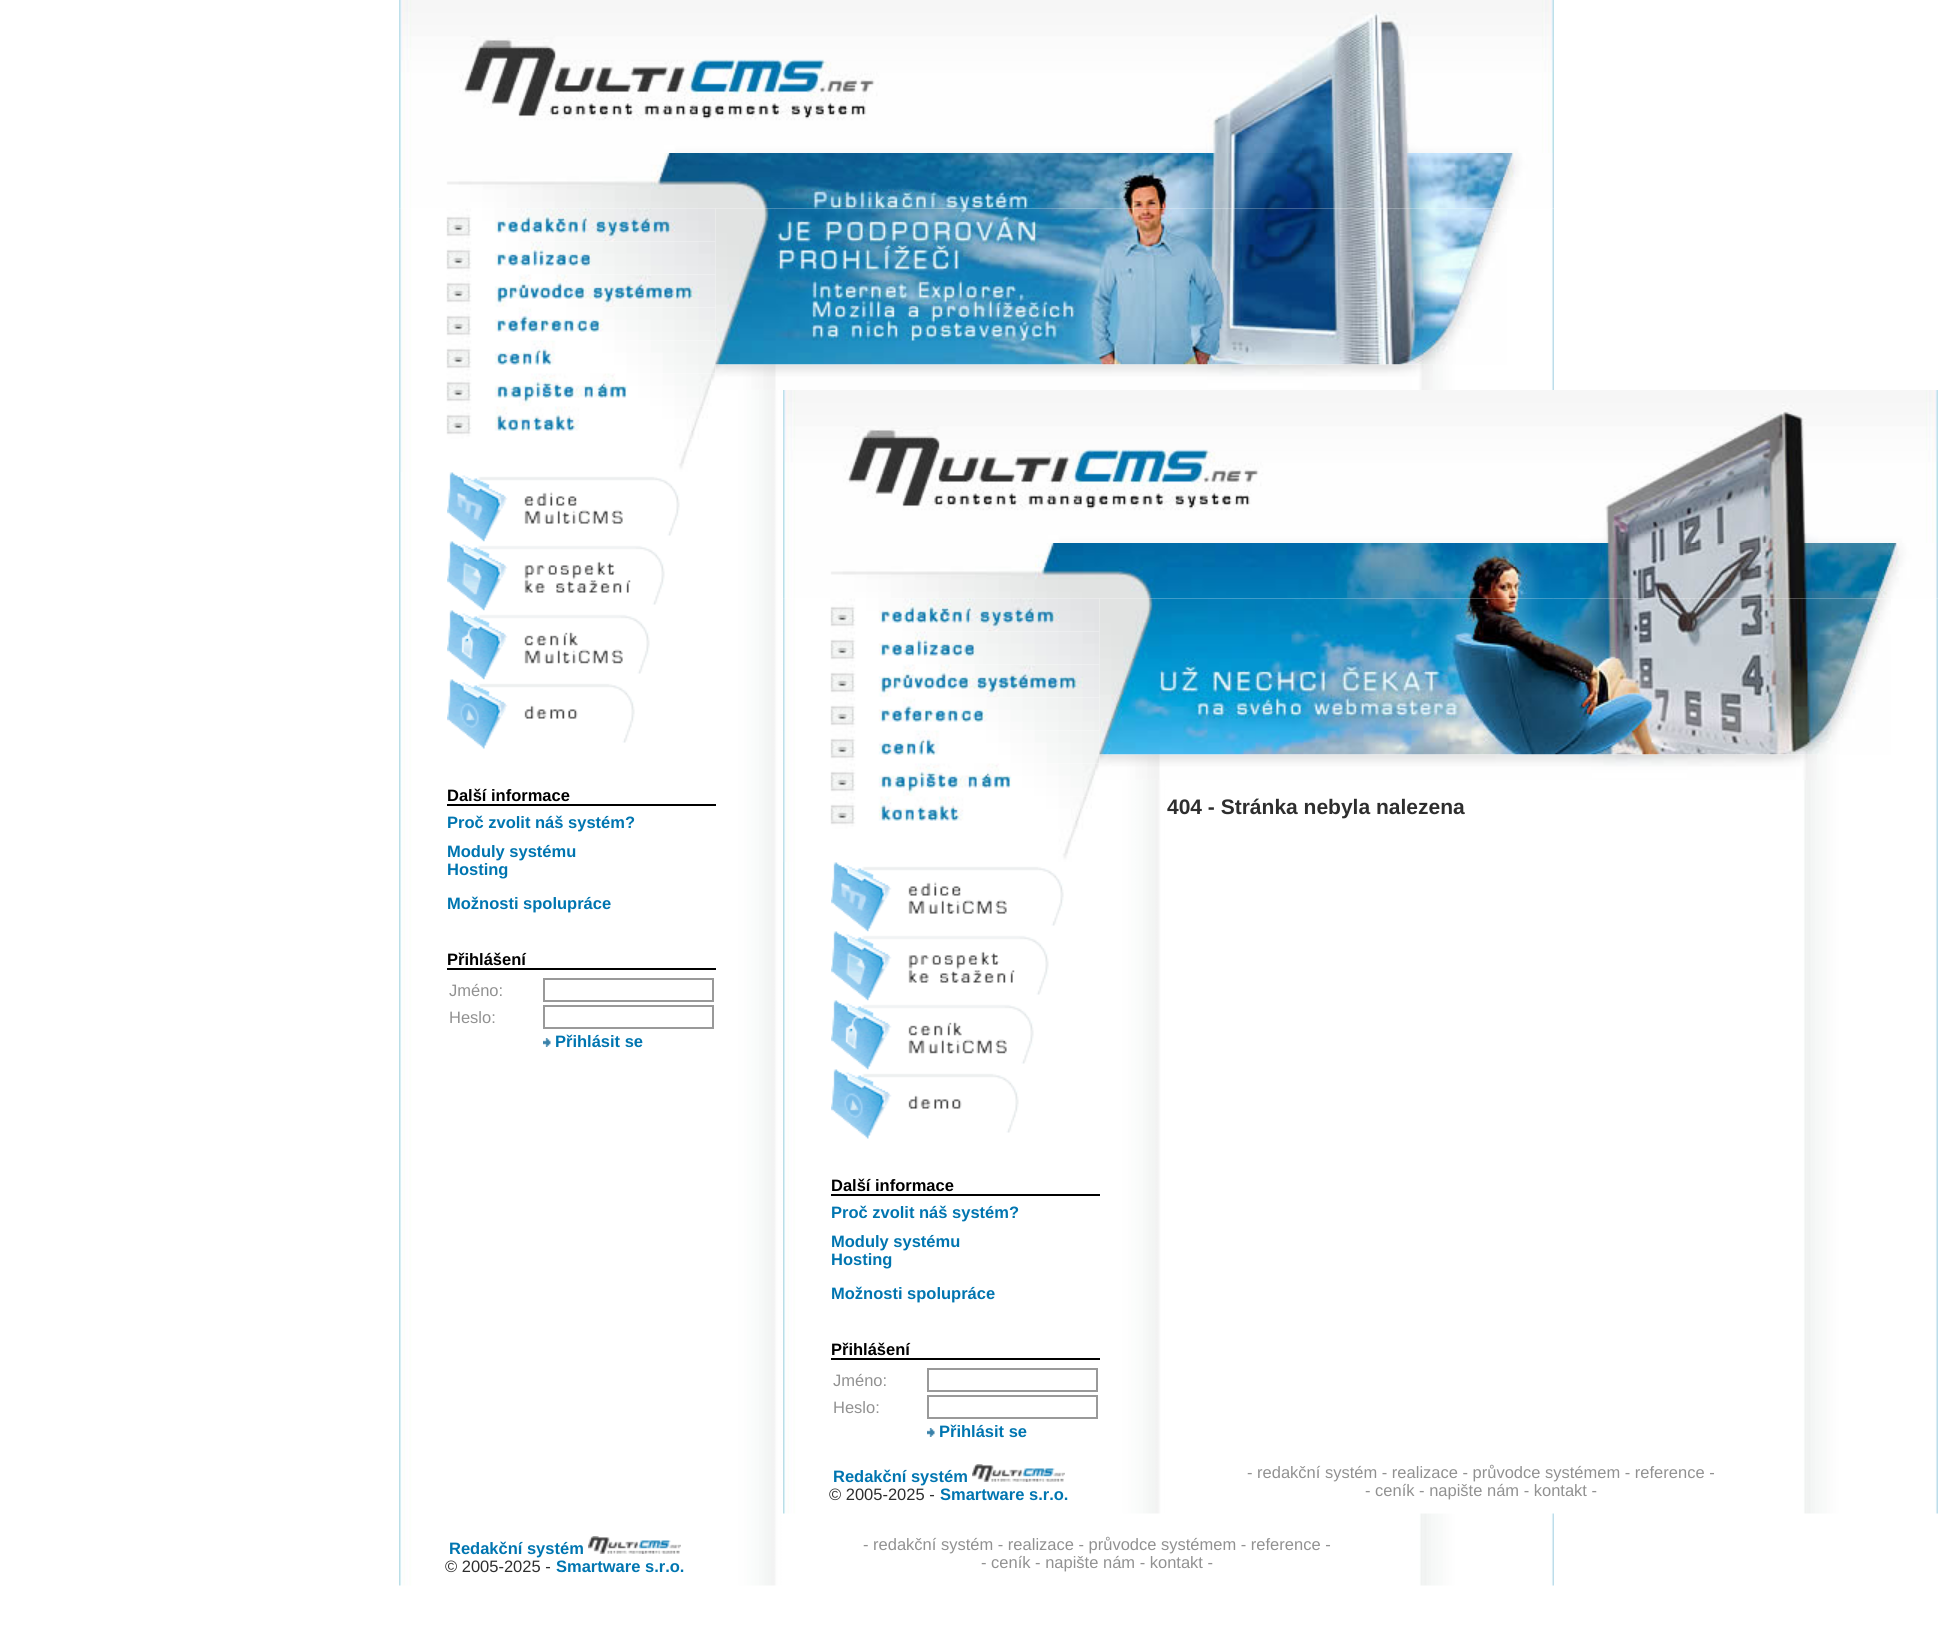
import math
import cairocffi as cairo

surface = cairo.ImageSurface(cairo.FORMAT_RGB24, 1952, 1629)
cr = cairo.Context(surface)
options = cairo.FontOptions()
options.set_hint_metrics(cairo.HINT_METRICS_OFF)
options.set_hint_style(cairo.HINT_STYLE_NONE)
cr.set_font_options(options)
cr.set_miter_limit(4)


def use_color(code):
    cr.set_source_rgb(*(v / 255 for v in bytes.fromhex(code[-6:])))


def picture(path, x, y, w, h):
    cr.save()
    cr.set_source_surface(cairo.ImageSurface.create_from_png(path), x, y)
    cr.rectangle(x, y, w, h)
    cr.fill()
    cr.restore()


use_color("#ffffff")
cr.paint()
picture("img1.png", 399, 0, 531, 153)
picture("img2.png", 930, 0, 624, 153)
picture("img4.png", 399, 208, 1155, 1378)
picture("img3.png", 399, 153, 1155, 56)
picture("img5.png", 399, 208, 317, 34)
picture("img6.png", 399, 241, 317, 34)
picture("img7.png", 399, 274, 317, 34)
picture("img8.png", 399, 307, 317, 34)
picture("img9.png", 399, 340, 317, 34)
picture("img10.png", 399, 373, 317, 34)
picture("img11.png", 399, 406, 309, 34)
picture("img12.png", 399, 439, 293, 33)
picture("img13.png", 447, 472, 233, 70)
picture("img14.png", 447, 541, 218, 70)
picture("img15.png", 447, 610, 203, 70)
picture("img16.png", 447, 679, 188, 70)
use_color("#000000")
cr.rectangle(447, 804, 269, 2)
cr.fill()
cr.select_font_face("Liberation Sans", cairo.FONT_SLANT_NORMAL, cairo.FONT_WEIGHT_BOLD)
cr.set_font_size(16.5)
cr.move_to(447, 801)
cr.show_text("Další informace")
use_color("#0075b0")
cr.move_to(447, 828)
cr.show_text("Proč zvolit náš systém?")
cr.move_to(447, 857)
cr.show_text("Moduly systému")
cr.move_to(447, 875)
cr.show_text("Hosting")
cr.move_to(447, 909)
cr.show_text("Možnosti spolupráce")
use_color("#000000")
cr.rectangle(447, 968, 269, 2)
cr.fill()
cr.move_to(447, 965)
cr.show_text("Přihlášení")
cr.select_font_face("Liberation Sans")
use_color("#919191")
cr.move_to(449, 996)
cr.show_text("Jméno:")
cr.rectangle(544, 979, 169, 22)
use_color("#999999")
cr.stroke()
use_color("#919191")
cr.move_to(449, 1023)
cr.show_text("Heslo:")
cr.rectangle(544, 1006, 169, 22)
use_color("#999999")
cr.stroke()
picture("img17.png", 543, 1038, 8, 9)
cr.select_font_face("Liberation Sans", cairo.FONT_SLANT_NORMAL, cairo.FONT_WEIGHT_BOLD)
use_color("#0075b0")
cr.move_to(555, 1047)
cr.show_text("Přihlásit se")
picture("img18.png", 715, 208, 792, 157)
picture("img19.png", 715, 364, 718, 26)
picture("img20.png", 783, 390, 531, 153)
picture("img21.png", 1314, 390, 624, 153)
picture("img23.png", 783, 598, 1155, 916)
picture("img22.png", 783, 543, 1155, 56)
picture("img26.png", 783, 598, 317, 34)
picture("img27.png", 783, 631, 317, 34)
picture("img28.png", 783, 664, 317, 34)
picture("img29.png", 783, 697, 317, 34)
picture("img30.png", 783, 730, 317, 34)
picture("img24.png", 1099, 598, 792, 157)
picture("img31.png", 783, 763, 317, 34)
picture("img25.png", 1099, 754, 718, 26)
cr.set_font_size(21)
use_color("#2e2e2e")
cr.move_to(1167, 814)
cr.show_text("404 - Stránka nebyla nalezena")
picture("img32.png", 783, 796, 309, 34)
picture("img33.png", 783, 829, 293, 33)
picture("img34.png", 831, 862, 233, 70)
picture("img35.png", 831, 931, 218, 70)
picture("img36.png", 831, 1000, 203, 70)
picture("img37.png", 831, 1069, 188, 70)
use_color("#000000")
cr.rectangle(831, 1194, 269, 2)
cr.fill()
cr.set_font_size(16.5)
cr.move_to(831, 1191)
cr.show_text("Další informace")
use_color("#0075b0")
cr.move_to(831, 1218)
cr.show_text("Proč zvolit náš systém?")
cr.move_to(831, 1247)
cr.show_text("Moduly systému")
cr.move_to(831, 1265)
cr.show_text("Hosting")
cr.move_to(831, 1299)
cr.show_text("Možnosti spolupráce")
use_color("#000000")
cr.rectangle(831, 1358, 269, 2)
cr.fill()
cr.move_to(831, 1355)
cr.show_text("Přihlášení")
cr.select_font_face("Liberation Sans")
use_color("#919191")
cr.move_to(833, 1386)
cr.show_text("Jméno:")
cr.rectangle(928, 1369, 169, 22)
use_color("#999999")
cr.stroke()
use_color("#919191")
cr.move_to(833, 1413)
cr.show_text("Heslo:")
cr.rectangle(928, 1396, 169, 22)
use_color("#999999")
cr.stroke()
picture("img17.png", 927, 1428, 8, 9)
cr.select_font_face("Liberation Sans", cairo.FONT_SLANT_NORMAL, cairo.FONT_WEIGHT_BOLD)
use_color("#0075b0")
cr.move_to(939, 1437)
cr.show_text("Přihlásit se")
cr.move_to(833, 1482)
cr.show_text("Redakční systém")
picture("img38.png", 972, 1464, 93, 18)
cr.select_font_face("Liberation Sans")
use_color("#2e2e2e")
cr.move_to(829, 1500)
cr.show_text("© 2005-2025 -")
cr.select_font_face("Liberation Sans", cairo.FONT_SLANT_NORMAL, cairo.FONT_WEIGHT_BOLD)
use_color("#0075b0")
cr.move_to(940, 1500)
cr.show_text("Smartware s.r.o.")
cr.select_font_face("Liberation Sans")
use_color("#919191")
cr.move_to(1247, 1478)
cr.show_text("- redakční systém - realizace - průvodce systémem - reference -")
cr.move_to(1365, 1496)
cr.show_text("- ceník - napište nám - kontakt -")
cr.select_font_face("Liberation Sans", cairo.FONT_SLANT_NORMAL, cairo.FONT_WEIGHT_BOLD)
use_color("#0075b0")
cr.move_to(449, 1554)
cr.show_text("Redakční systém")
picture("img39.png", 588, 1536, 93, 18)
cr.select_font_face("Liberation Sans")
use_color("#2e2e2e")
cr.move_to(445, 1572)
cr.show_text("© 2005-2025 -")
cr.select_font_face("Liberation Sans", cairo.FONT_SLANT_NORMAL, cairo.FONT_WEIGHT_BOLD)
use_color("#0075b0")
cr.move_to(556, 1572)
cr.show_text("Smartware s.r.o.")
cr.select_font_face("Liberation Sans")
use_color("#919191")
cr.move_to(863, 1550)
cr.show_text("- redakční systém - realizace - průvodce systémem - reference -")
cr.move_to(981, 1568)
cr.show_text("- ceník - napište nám - kontakt -")
surface.write_to_png("result.png")
